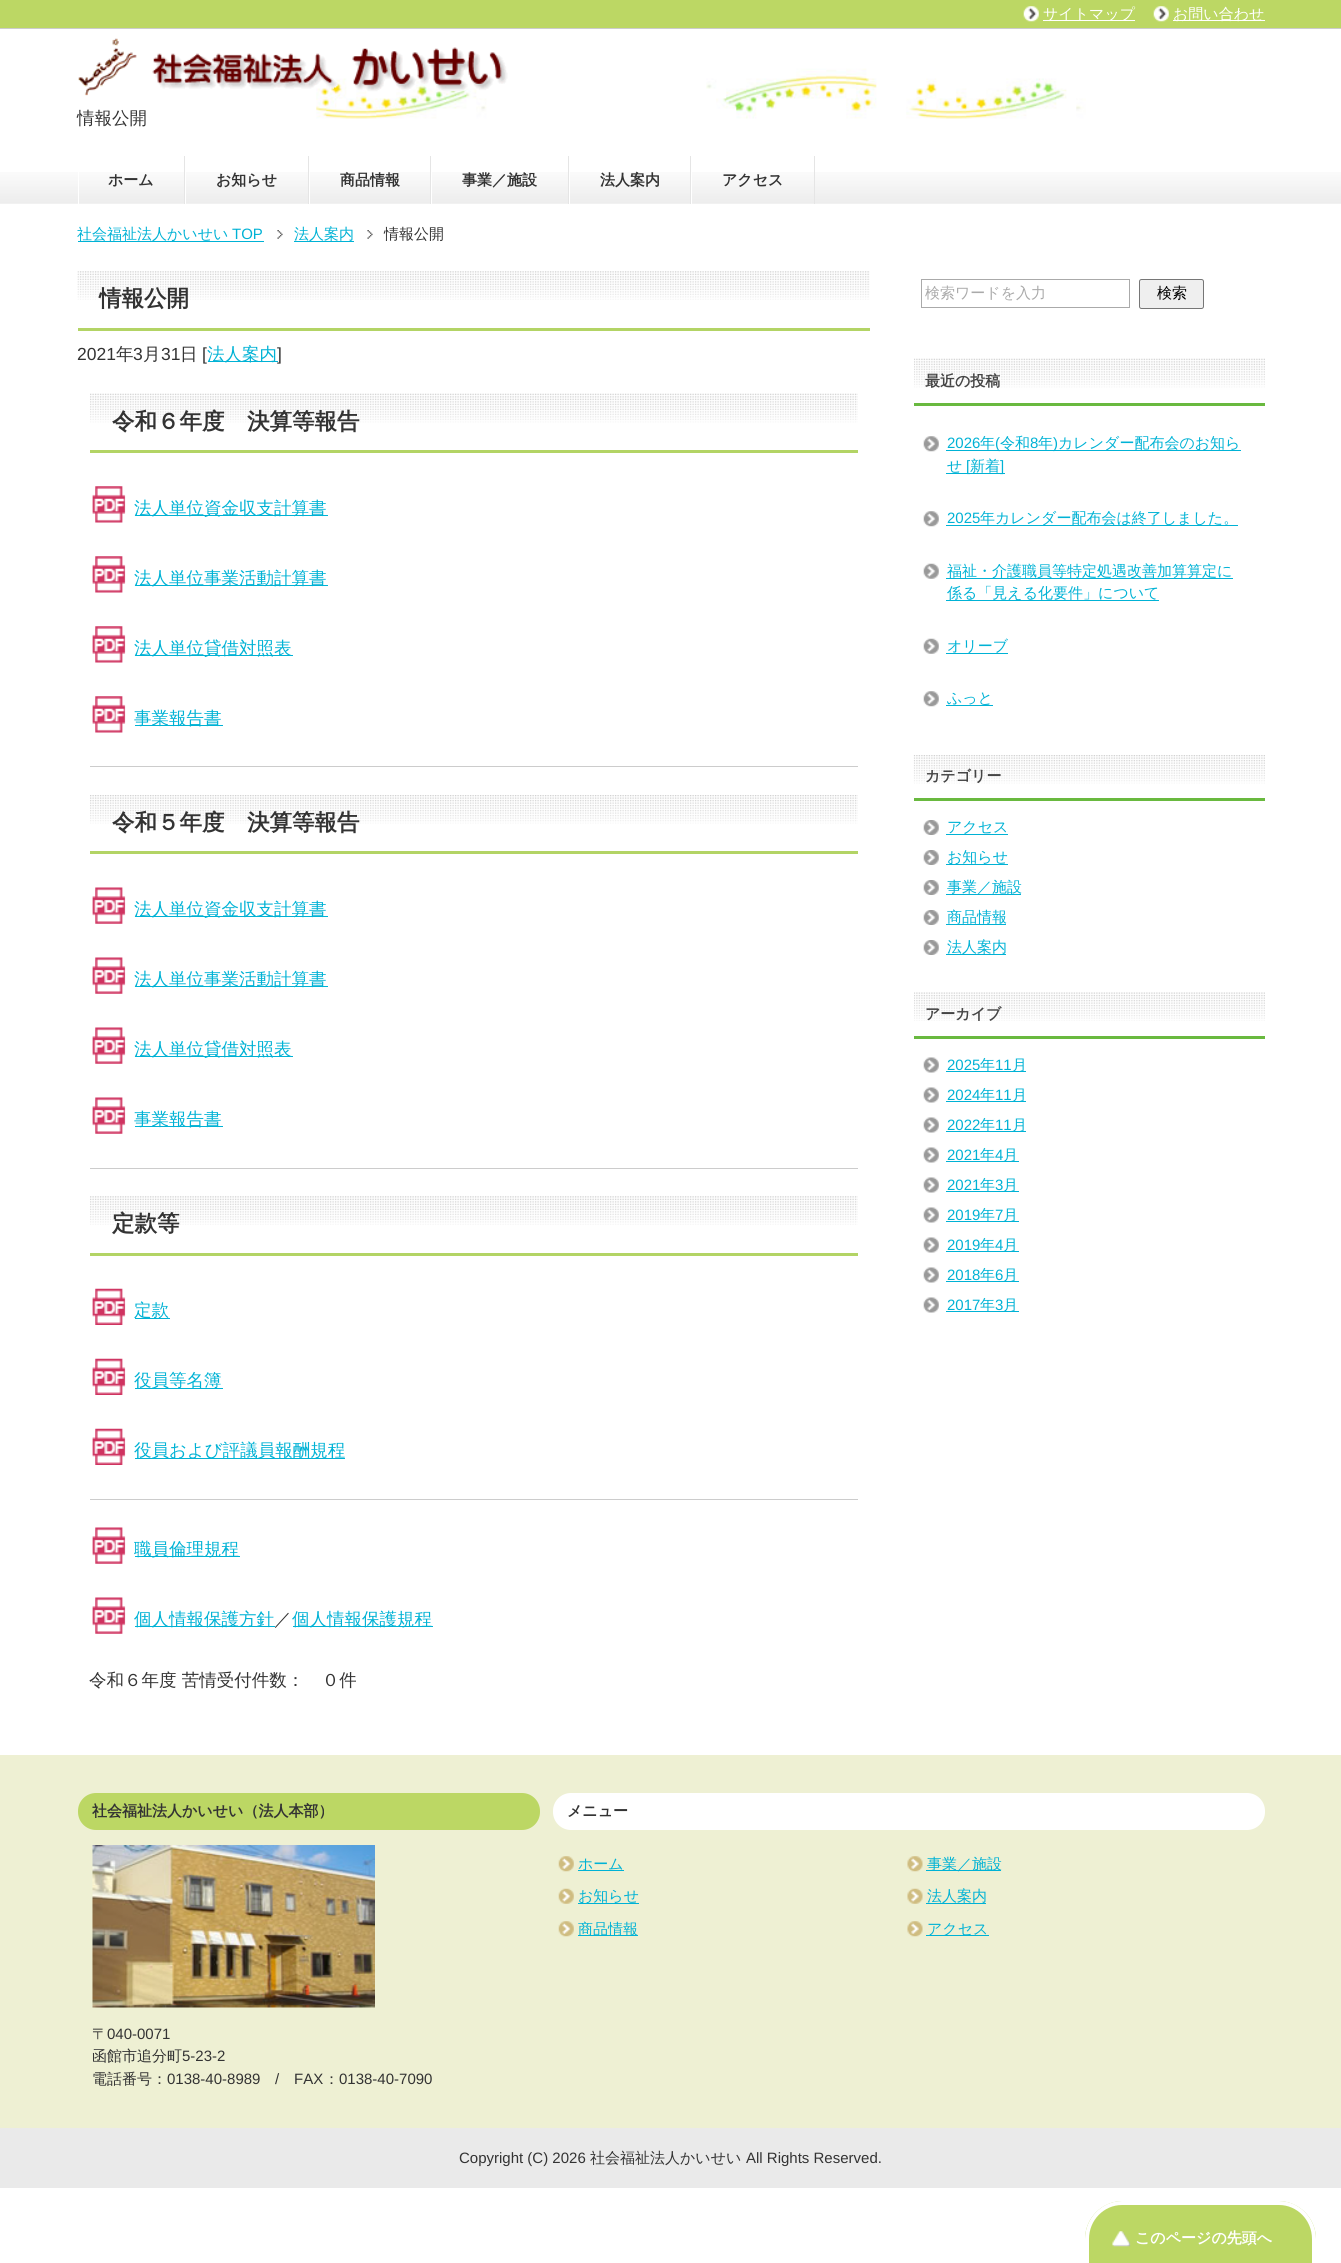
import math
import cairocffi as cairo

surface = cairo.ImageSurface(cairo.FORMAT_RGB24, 1341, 2263)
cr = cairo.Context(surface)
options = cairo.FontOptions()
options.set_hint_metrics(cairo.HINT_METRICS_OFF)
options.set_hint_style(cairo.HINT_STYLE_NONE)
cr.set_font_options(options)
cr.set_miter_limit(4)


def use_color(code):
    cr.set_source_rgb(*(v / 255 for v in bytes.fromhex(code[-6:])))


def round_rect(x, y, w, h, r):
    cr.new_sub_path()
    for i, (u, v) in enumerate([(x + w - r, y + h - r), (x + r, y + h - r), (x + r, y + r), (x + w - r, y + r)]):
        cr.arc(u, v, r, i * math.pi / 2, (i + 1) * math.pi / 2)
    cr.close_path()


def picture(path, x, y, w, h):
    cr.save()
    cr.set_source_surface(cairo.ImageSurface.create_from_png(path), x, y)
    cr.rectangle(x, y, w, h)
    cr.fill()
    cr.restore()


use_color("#ffffff")
cr.paint()
use_color("#bcd764")
cr.rectangle(0, 0, 1341, 28)
cr.fill()
use_color("#cccccc")
cr.rectangle(0, 28, 1341, 1)
cr.fill()
picture("img1.png", 1023, 6, 16, 16)
use_color("#ffffff")
cr.rectangle(1043, 20, 92, 1)
cr.fill()
cr.select_font_face("WenQuanYi Zen Hei Medium")
cr.set_font_size(15)
cr.move_to(1043, 19)
cr.show_text("サイトマップ")
picture("img2.png", 1153, 6, 16, 16)
cr.rectangle(1173, 20, 92, 1)
cr.fill()
cr.move_to(1173, 19)
cr.show_text("お問い合わせ")
picture("img3.png", 316, 68, 770, 51)
picture("img4.png", 78, 38, 430, 58)
cr.set_font_size(17.5)
use_color("#333333")
cr.move_to(77, 124)
cr.show_text("情報公開")
picture("img5.png", 0, 172, 1341, 32)
use_color("#e5e5e5")
cr.rectangle(184, 156, 1, 48)
cr.fill()
use_color("#ffffff")
cr.rectangle(78, 172, 1, 32)
cr.fill()
cr.select_font_face("WenQuanYi Zen Hei", cairo.FONT_SLANT_NORMAL, cairo.FONT_WEIGHT_BOLD)
cr.set_font_size(15)
use_color("#333333")
cr.move_to(108, 185)
cr.show_text("ホーム")
use_color("#e5e5e5")
cr.rectangle(308, 156, 1, 48)
cr.fill()
use_color("#ffffff")
cr.rectangle(185, 172, 1, 32)
cr.fill()
use_color("#333333")
cr.move_to(216, 185)
cr.show_text("お知らせ")
use_color("#e5e5e5")
cr.rectangle(430, 156, 1, 48)
cr.fill()
use_color("#ffffff")
cr.rectangle(309, 172, 1, 32)
cr.fill()
use_color("#333333")
cr.move_to(340, 185)
cr.show_text("商品情報")
use_color("#e5e5e5")
cr.rectangle(568, 156, 1, 48)
cr.fill()
use_color("#ffffff")
cr.rectangle(431, 172, 1, 32)
cr.fill()
use_color("#333333")
cr.move_to(462, 185)
cr.show_text("事業／施設")
use_color("#e5e5e5")
cr.rectangle(690, 156, 1, 48)
cr.fill()
use_color("#ffffff")
cr.rectangle(569, 172, 1, 32)
cr.fill()
use_color("#333333")
cr.move_to(600, 185)
cr.show_text("法人案内")
use_color("#e5e5e5")
cr.rectangle(814, 156, 1, 48)
cr.fill()
use_color("#ffffff")
cr.rectangle(691, 172, 1, 32)
cr.fill()
use_color("#333333")
cr.move_to(722, 185)
cr.show_text("アクセス")
use_color("#00b2d5")
cr.rectangle(78, 241, 186, 1)
cr.fill()
cr.select_font_face("WenQuanYi Zen Hei Medium")
cr.move_to(77, 239)
cr.show_text("社会福祉法人かいせい")
cr.select_font_face("Liberation Sans")
cr.move_to(232, 239)
cr.show_text("TOP")
picture("img6.png", 277, 230, 6, 9)
cr.rectangle(294, 241, 60, 1)
cr.fill()
cr.select_font_face("WenQuanYi Zen Hei Medium")
cr.move_to(294, 239)
cr.show_text("法人案内")
picture("img6.png", 367, 230, 6, 9)
use_color("#333333")
cr.move_to(384, 239)
cr.show_text("情報公開")
picture("img7.png", 77, 271, 793, 29)
use_color("#b3d465")
cr.rectangle(78, 328, 792, 3)
cr.fill()
cr.select_font_face("WenQuanYi Zen Hei", cairo.FONT_SLANT_NORMAL, cairo.FONT_WEIGHT_BOLD)
cr.set_font_size(22.5)
use_color("#333333")
cr.move_to(99, 306)
cr.show_text("情報公開")
cr.select_font_face("Liberation Sans")
cr.set_font_size(17.5)
cr.move_to(77, 360)
cr.show_text("2021")
cr.select_font_face("WenQuanYi Zen Hei Medium")
cr.move_to(116, 360)
cr.show_text("年")
cr.select_font_face("Liberation Sans")
cr.move_to(133, 360)
cr.show_text("3")
cr.select_font_face("WenQuanYi Zen Hei Medium")
cr.move_to(143, 360)
cr.show_text("月")
cr.select_font_face("Liberation Sans")
cr.move_to(161, 360)
cr.show_text("31")
cr.select_font_face("WenQuanYi Zen Hei Medium")
cr.move_to(180, 360)
cr.show_text("日")
cr.select_font_face("Liberation Sans")
cr.move_to(202, 360)
cr.show_text("[")
use_color("#00b2d5")
cr.rectangle(208, 361, 70, 1)
cr.fill()
cr.select_font_face("WenQuanYi Zen Hei Medium")
cr.move_to(207, 360)
cr.show_text("法人案内")
cr.select_font_face("Liberation Sans")
use_color("#333333")
cr.move_to(277, 360)
cr.show_text("]")
picture("img8.png", 90, 393, 768, 30)
use_color("#b3d465")
cr.rectangle(90, 450, 768, 3)
cr.fill()
cr.select_font_face("WenQuanYi Zen Hei", cairo.FONT_SLANT_NORMAL, cairo.FONT_WEIGHT_BOLD)
cr.set_font_size(22.5)
use_color("#333333")
cr.move_to(112, 429)
cr.show_text("令和６年度　決算等報告")
picture("img9.png", 92, 486, 34, 37)
use_color("#00b2d5")
cr.rectangle(135, 515, 193, 1)
cr.fill()
cr.select_font_face("WenQuanYi Zen Hei Medium")
cr.set_font_size(17.5)
cr.move_to(134, 514)
cr.show_text("法人単位資金収支計算書")
picture("img9.png", 92, 556, 34, 37)
cr.rectangle(135, 585, 193, 1)
cr.fill()
cr.move_to(134, 584)
cr.show_text("法人単位事業活動計算書")
picture("img9.png", 92, 626, 34, 37)
cr.rectangle(135, 655, 158, 1)
cr.fill()
cr.move_to(134, 654)
cr.show_text("法人単位貸借対照表")
picture("img9.png", 92, 696, 34, 37)
cr.rectangle(135, 725, 88, 1)
cr.fill()
cr.move_to(134, 724)
cr.show_text("事業報告書")
use_color("#cccccc")
cr.rectangle(90, 766, 768, 1)
cr.fill()
picture("img10.png", 90, 795, 768, 29)
use_color("#b3d465")
cr.rectangle(90, 851, 768, 3)
cr.fill()
cr.select_font_face("WenQuanYi Zen Hei", cairo.FONT_SLANT_NORMAL, cairo.FONT_WEIGHT_BOLD)
cr.set_font_size(22.5)
use_color("#333333")
cr.move_to(112, 830)
cr.show_text("令和５年度　決算等報告")
picture("img11.png", 92, 887, 34, 37)
use_color("#00b2d5")
cr.rectangle(135, 916, 193, 1)
cr.fill()
cr.select_font_face("WenQuanYi Zen Hei Medium")
cr.set_font_size(17.5)
cr.move_to(134, 915)
cr.show_text("法人単位資金収支計算書")
picture("img11.png", 92, 957, 34, 37)
cr.rectangle(135, 986, 193, 1)
cr.fill()
cr.move_to(134, 985)
cr.show_text("法人単位事業活動計算書")
picture("img11.png", 92, 1027, 34, 37)
cr.rectangle(135, 1056, 158, 1)
cr.fill()
cr.move_to(134, 1055)
cr.show_text("法人単位貸借対照表")
picture("img11.png", 92, 1097, 34, 37)
cr.rectangle(135, 1126, 88, 1)
cr.fill()
cr.move_to(134, 1125)
cr.show_text("事業報告書")
use_color("#cccccc")
cr.rectangle(90, 1168, 768, 1)
cr.fill()
picture("img12.png", 90, 1196, 768, 29)
use_color("#b3d465")
cr.rectangle(90, 1253, 768, 3)
cr.fill()
cr.select_font_face("WenQuanYi Zen Hei", cairo.FONT_SLANT_NORMAL, cairo.FONT_WEIGHT_BOLD)
cr.set_font_size(22.5)
use_color("#333333")
cr.move_to(112, 1231)
cr.show_text("定款等")
picture("img13.png", 92, 1288, 34, 37)
use_color("#00b2d5")
cr.rectangle(135, 1318, 35, 1)
cr.fill()
cr.select_font_face("WenQuanYi Zen Hei Medium")
cr.set_font_size(17.5)
cr.move_to(134, 1316)
cr.show_text("定款")
picture("img13.png", 92, 1358, 34, 37)
cr.rectangle(135, 1388, 88, 1)
cr.fill()
cr.move_to(134, 1386)
cr.show_text("役員等名簿")
picture("img13.png", 92, 1428, 34, 37)
cr.rectangle(135, 1458, 210, 1)
cr.fill()
cr.move_to(134, 1456)
cr.show_text("役員および評議員報酬規程")
use_color("#cccccc")
cr.rectangle(90, 1499, 768, 1)
cr.fill()
picture("img11.png", 92, 1527, 34, 37)
use_color("#00b2d5")
cr.rectangle(135, 1556, 105, 1)
cr.fill()
cr.move_to(134, 1555)
cr.show_text("職員倫理規程")
picture("img11.png", 92, 1597, 34, 37)
cr.rectangle(135, 1626, 140, 1)
cr.fill()
cr.move_to(134, 1625)
cr.show_text("個人情報保護方針")
use_color("#333333")
cr.move_to(274, 1625)
cr.show_text("／")
use_color("#00b2d5")
cr.rectangle(293, 1626, 140, 1)
cr.fill()
cr.move_to(292, 1625)
cr.show_text("個人情報保護規程")
use_color("#333333")
cr.move_to(89, 1686)
cr.show_text("令和６年度 苦情受付件数：　０件")
cr.rectangle(921.5, 279.5, 208, 28)
use_color("#aaaaaa")
cr.set_line_width(1)
cr.stroke()
cr.set_font_size(15)
cr.move_to(925, 298)
cr.show_text("検索ワードを入力")
use_color("#efefef")
round_rect(1139.5, 279.5, 64, 29, 2)
cr.fill_preserve()
use_color("#767676")
cr.stroke()
use_color("#000000")
cr.move_to(1157, 298)
cr.show_text("検索")
picture("img14.png", 914, 358, 351, 30)
use_color("#69b93f")
cr.rectangle(914, 403, 351, 3)
cr.fill()
cr.select_font_face("WenQuanYi Zen Hei", cairo.FONT_SLANT_NORMAL, cairo.FONT_WEIGHT_BOLD)
use_color("#454545")
cr.move_to(925, 386)
cr.show_text("最近の投稿")
picture("img15.png", 923, 436, 16, 16)
cr.select_font_face("Liberation Sans")
use_color("#00b2d5")
cr.move_to(947, 448)
cr.show_text("2026")
cr.select_font_face("WenQuanYi Zen Hei Medium")
cr.move_to(980, 448)
cr.show_text("年")
cr.rectangle(946, 450, 295, 1)
cr.fill()
cr.select_font_face("Liberation Sans")
cr.move_to(995, 448)
cr.show_text("(")
cr.select_font_face("WenQuanYi Zen Hei Medium")
cr.move_to(1000, 448)
cr.show_text("令和")
cr.select_font_face("Liberation Sans")
cr.move_to(1030, 448)
cr.show_text("8")
cr.select_font_face("WenQuanYi Zen Hei Medium")
cr.move_to(1038, 448)
cr.show_text("年")
cr.select_font_face("Liberation Sans")
cr.move_to(1053, 448)
cr.show_text(")")
cr.select_font_face("WenQuanYi Zen Hei Medium")
cr.move_to(1058, 448)
cr.show_text("カレンダー配布会のお知ら")
cr.move_to(947, 471)
cr.show_text("せ")
cr.rectangle(946, 473, 59, 1)
cr.fill()
cr.select_font_face("Liberation Sans")
cr.move_to(966, 471)
cr.show_text("[")
cr.select_font_face("WenQuanYi Zen Hei Medium")
cr.move_to(970, 471)
cr.show_text("新着")
cr.select_font_face("Liberation Sans")
cr.move_to(1000, 471)
cr.show_text("]")
picture("img15.png", 923, 511, 16, 16)
cr.move_to(947, 523)
cr.show_text("2025")
cr.rectangle(946, 525, 292, 1)
cr.fill()
cr.select_font_face("WenQuanYi Zen Hei Medium")
cr.move_to(980, 523)
cr.show_text("年カレンダー配布会は終了しました。")
picture("img16.png", 923, 563, 16, 16)
cr.rectangle(946, 578, 287, 1)
cr.fill()
cr.move_to(947, 576)
cr.show_text("福祉・介護職員等特定処遇改善加算算定に")
cr.rectangle(946, 600, 213, 1)
cr.fill()
cr.move_to(947, 598)
cr.show_text("係る「見える化要件」について")
picture("img16.png", 923, 638, 16, 16)
cr.rectangle(946, 653, 62, 1)
cr.fill()
cr.move_to(947, 651)
cr.show_text("オリーブ")
picture("img15.png", 923, 691, 16, 16)
cr.move_to(947, 703)
cr.show_text("ふっと")
cr.rectangle(946, 705, 47, 1)
cr.fill()
picture("img17.png", 913, 755, 352, 29)
use_color("#69b93f")
cr.rectangle(914, 798, 351, 3)
cr.fill()
cr.select_font_face("WenQuanYi Zen Hei", cairo.FONT_SLANT_NORMAL, cairo.FONT_WEIGHT_BOLD)
use_color("#454545")
cr.move_to(925, 781)
cr.show_text("カテゴリー")
picture("img18.png", 923, 820, 16, 15)
cr.select_font_face("WenQuanYi Zen Hei Medium")
use_color("#00b2d5")
cr.move_to(947, 832)
cr.show_text("アクセス")
cr.rectangle(946, 834, 62, 1)
cr.fill()
picture("img18.png", 923, 850, 16, 15)
cr.rectangle(946, 864, 62, 1)
cr.fill()
cr.move_to(947, 862)
cr.show_text("お知らせ")
picture("img18.png", 923, 880, 16, 15)
cr.rectangle(946, 894, 75, 1)
cr.fill()
cr.move_to(947, 892)
cr.show_text("事業／施設")
picture("img18.png", 923, 910, 16, 15)
cr.move_to(947, 922)
cr.show_text("商品情報")
cr.rectangle(946, 924, 60, 1)
cr.fill()
picture("img18.png", 923, 940, 16, 15)
cr.rectangle(946, 954, 60, 1)
cr.fill()
cr.move_to(947, 952)
cr.show_text("法人案内")
picture("img19.png", 914, 992, 351, 29)
use_color("#69b93f")
cr.rectangle(914, 1036, 351, 3)
cr.fill()
cr.select_font_face("WenQuanYi Zen Hei", cairo.FONT_SLANT_NORMAL, cairo.FONT_WEIGHT_BOLD)
use_color("#454545")
cr.move_to(925, 1019)
cr.show_text("アーカイブ")
picture("img20.png", 923, 1057, 16, 16)
cr.select_font_face("Liberation Sans")
use_color("#00b2d5")
cr.move_to(947, 1070)
cr.show_text("2025")
cr.rectangle(946, 1071, 80, 1)
cr.fill()
cr.select_font_face("WenQuanYi Zen Hei Medium")
cr.move_to(980, 1070)
cr.show_text("年")
cr.select_font_face("Liberation Sans")
cr.move_to(995, 1070)
cr.show_text("11")
cr.select_font_face("WenQuanYi Zen Hei Medium")
cr.move_to(1012, 1070)
cr.show_text("月")
picture("img20.png", 923, 1087, 16, 16)
cr.select_font_face("Liberation Sans")
cr.move_to(947, 1100)
cr.show_text("2024")
cr.rectangle(946, 1101, 80, 1)
cr.fill()
cr.select_font_face("WenQuanYi Zen Hei Medium")
cr.move_to(980, 1100)
cr.show_text("年")
cr.select_font_face("Liberation Sans")
cr.move_to(995, 1100)
cr.show_text("11")
cr.select_font_face("WenQuanYi Zen Hei Medium")
cr.move_to(1012, 1100)
cr.show_text("月")
picture("img20.png", 923, 1117, 16, 16)
cr.select_font_face("Liberation Sans")
cr.move_to(947, 1130)
cr.show_text("2022")
cr.rectangle(946, 1131, 80, 1)
cr.fill()
cr.select_font_face("WenQuanYi Zen Hei Medium")
cr.move_to(980, 1130)
cr.show_text("年")
cr.select_font_face("Liberation Sans")
cr.move_to(995, 1130)
cr.show_text("11")
cr.select_font_face("WenQuanYi Zen Hei Medium")
cr.move_to(1012, 1130)
cr.show_text("月")
picture("img20.png", 923, 1147, 16, 16)
cr.select_font_face("Liberation Sans")
cr.move_to(947, 1160)
cr.show_text("2021")
cr.rectangle(946, 1161, 73, 1)
cr.fill()
cr.select_font_face("WenQuanYi Zen Hei Medium")
cr.move_to(980, 1160)
cr.show_text("年")
cr.select_font_face("Liberation Sans")
cr.move_to(995, 1160)
cr.show_text("4")
cr.select_font_face("WenQuanYi Zen Hei Medium")
cr.move_to(1003, 1160)
cr.show_text("月")
picture("img20.png", 923, 1177, 16, 16)
cr.select_font_face("Liberation Sans")
cr.move_to(947, 1190)
cr.show_text("2021")
cr.rectangle(946, 1191, 73, 1)
cr.fill()
cr.select_font_face("WenQuanYi Zen Hei Medium")
cr.move_to(980, 1190)
cr.show_text("年")
cr.select_font_face("Liberation Sans")
cr.move_to(995, 1190)
cr.show_text("3")
cr.select_font_face("WenQuanYi Zen Hei Medium")
cr.move_to(1003, 1190)
cr.show_text("月")
picture("img20.png", 923, 1207, 16, 16)
cr.select_font_face("Liberation Sans")
cr.move_to(947, 1220)
cr.show_text("2019")
cr.rectangle(946, 1221, 73, 1)
cr.fill()
cr.select_font_face("WenQuanYi Zen Hei Medium")
cr.move_to(980, 1220)
cr.show_text("年")
cr.select_font_face("Liberation Sans")
cr.move_to(995, 1220)
cr.show_text("7")
cr.select_font_face("WenQuanYi Zen Hei Medium")
cr.move_to(1003, 1220)
cr.show_text("月")
picture("img20.png", 923, 1237, 16, 16)
cr.select_font_face("Liberation Sans")
cr.move_to(947, 1250)
cr.show_text("2019")
cr.rectangle(946, 1251, 73, 1)
cr.fill()
cr.select_font_face("WenQuanYi Zen Hei Medium")
cr.move_to(980, 1250)
cr.show_text("年")
cr.select_font_face("Liberation Sans")
cr.move_to(995, 1250)
cr.show_text("4")
cr.select_font_face("WenQuanYi Zen Hei Medium")
cr.move_to(1003, 1250)
cr.show_text("月")
picture("img20.png", 923, 1267, 16, 16)
cr.select_font_face("Liberation Sans")
cr.move_to(947, 1280)
cr.show_text("2018")
cr.rectangle(946, 1281, 73, 1)
cr.fill()
cr.select_font_face("WenQuanYi Zen Hei Medium")
cr.move_to(980, 1280)
cr.show_text("年")
cr.select_font_face("Liberation Sans")
cr.move_to(995, 1280)
cr.show_text("6")
cr.select_font_face("WenQuanYi Zen Hei Medium")
cr.move_to(1003, 1280)
cr.show_text("月")
picture("img20.png", 923, 1297, 16, 16)
cr.select_font_face("Liberation Sans")
cr.move_to(947, 1310)
cr.show_text("2017")
cr.rectangle(946, 1311, 73, 1)
cr.fill()
cr.select_font_face("WenQuanYi Zen Hei Medium")
cr.move_to(980, 1310)
cr.show_text("年")
cr.select_font_face("Liberation Sans")
cr.move_to(995, 1310)
cr.show_text("3")
cr.select_font_face("WenQuanYi Zen Hei Medium")
cr.move_to(1003, 1310)
cr.show_text("月")
use_color("#eef0d3")
cr.rectangle(0, 1755, 1341, 373)
cr.fill()
use_color("#bcd764")
round_rect(78, 1793, 462, 37, 18)
cr.fill()
cr.select_font_face("WenQuanYi Zen Hei", cairo.FONT_SLANT_NORMAL, cairo.FONT_WEIGHT_BOLD)
use_color("#333333")
cr.move_to(92, 1816)
cr.show_text("社会福祉法人かいせい（法人本部）")
picture("img21.png", 92, 1845, 283, 163)
cr.select_font_face("WenQuanYi Zen Hei Medium")
cr.move_to(92, 2039)
cr.show_text("〒")
cr.select_font_face("Liberation Sans")
cr.move_to(107, 2039)
cr.show_text("040-0071")
cr.select_font_face("WenQuanYi Zen Hei Medium")
cr.move_to(92, 2061)
cr.show_text("函館市追分町")
cr.select_font_face("Liberation Sans")
cr.move_to(182, 2061)
cr.show_text("5-23-2")
cr.select_font_face("WenQuanYi Zen Hei Medium")
cr.move_to(92, 2084)
cr.show_text("電話番号：")
cr.select_font_face("Liberation Sans")
cr.move_to(167, 2084)
cr.show_text("0138-40-8989")
cr.move_to(275, 2084)
cr.show_text("/")
cr.move_to(294, 2084)
cr.show_text("FAX")
cr.select_font_face("WenQuanYi Zen Hei Medium")
cr.move_to(324, 2084)
cr.show_text("：")
cr.select_font_face("Liberation Sans")
cr.move_to(339, 2084)
cr.show_text("0138-40-7090")
use_color("#ffffff")
round_rect(553, 1793, 712, 37, 18)
cr.fill()
cr.select_font_face("WenQuanYi Zen Hei", cairo.FONT_SLANT_NORMAL, cairo.FONT_WEIGHT_BOLD)
use_color("#333333")
cr.move_to(567, 1816)
cr.show_text("メニュー")
picture("img22.png", 558, 1856, 16, 16)
use_color("#00b2d5")
cr.rectangle(578, 1870, 46, 1)
cr.fill()
cr.select_font_face("WenQuanYi Zen Hei Medium")
cr.move_to(578, 1869)
cr.show_text("ホーム")
picture("img23.png", 558, 1888, 16, 16)
cr.rectangle(578, 1903, 61, 1)
cr.fill()
cr.move_to(578, 1901)
cr.show_text("お知らせ")
picture("img24.png", 558, 1921, 16, 16)
cr.rectangle(578, 1935, 60, 1)
cr.fill()
cr.move_to(578, 1934)
cr.show_text("商品情報")
picture("img25.png", 907, 1856, 16, 16)
cr.rectangle(926, 1870, 75, 1)
cr.fill()
cr.move_to(927, 1869)
cr.show_text("事業／施設")
picture("img26.png", 907, 1888, 16, 16)
cr.rectangle(926, 1903, 60, 1)
cr.fill()
cr.move_to(927, 1901)
cr.show_text("法人案内")
picture("img27.png", 907, 1921, 16, 16)
cr.rectangle(926, 1935, 63, 1)
cr.fill()
cr.move_to(927, 1934)
cr.show_text("アクセス")
use_color("#eaeaea")
cr.rectangle(0, 2128, 1341, 60)
cr.fill()
cr.select_font_face("Liberation Sans")
use_color("#333333")
cr.move_to(459, 2163)
cr.show_text("Copyright (C) 2026")
cr.select_font_face("WenQuanYi Zen Hei Medium")
cr.move_to(590, 2163)
cr.show_text("社会福祉法人かいせい")
cr.select_font_face("Liberation Sans")
cr.move_to(746, 2163)
cr.show_text("All Rights Reserved.")
use_color("#bcd764")
cr.new_path()
cr.move_to(1123, 2201)
cr.line_to(1278, 2201)
cr.curve_to(1299, 2201, 1316, 2218, 1316, 2239)
cr.line_to(1316, 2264)
cr.line_to(1085, 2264)
cr.line_to(1085, 2239)
cr.curve_to(1085, 2218, 1102, 2201, 1123, 2201)
cr.close_path()
cr.fill()
picture("img28.png", 1112, 2231, 19, 16)
use_color("#ffffff")
cr.set_fill_rule(cairo.FILL_RULE_EVEN_ODD)
cr.new_path()
cr.move_to(1122, 2201)
cr.line_to(1279, 2201)
cr.curve_to(1299, 2201, 1316, 2218, 1316, 2239)
cr.line_to(1316, 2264)
cr.line_to(1085, 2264)
cr.line_to(1085, 2239)
cr.curve_to(1085, 2218, 1102, 2201, 1122, 2201)
cr.close_path()
cr.move_to(1122, 2205)
cr.line_to(1279, 2205)
cr.curve_to(1297, 2205, 1312, 2220, 1312, 2239)
cr.line_to(1312, 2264)
cr.line_to(1089, 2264)
cr.line_to(1089, 2239)
cr.curve_to(1089, 2220, 1104, 2205, 1122, 2205)
cr.close_path()
cr.fill()
cr.select_font_face("WenQuanYi Zen Hei", cairo.FONT_SLANT_NORMAL, cairo.FONT_WEIGHT_BOLD)
cr.move_to(1135, 2243)
cr.show_text("このページの先頭へ")
surface.write_to_png("result.png")
